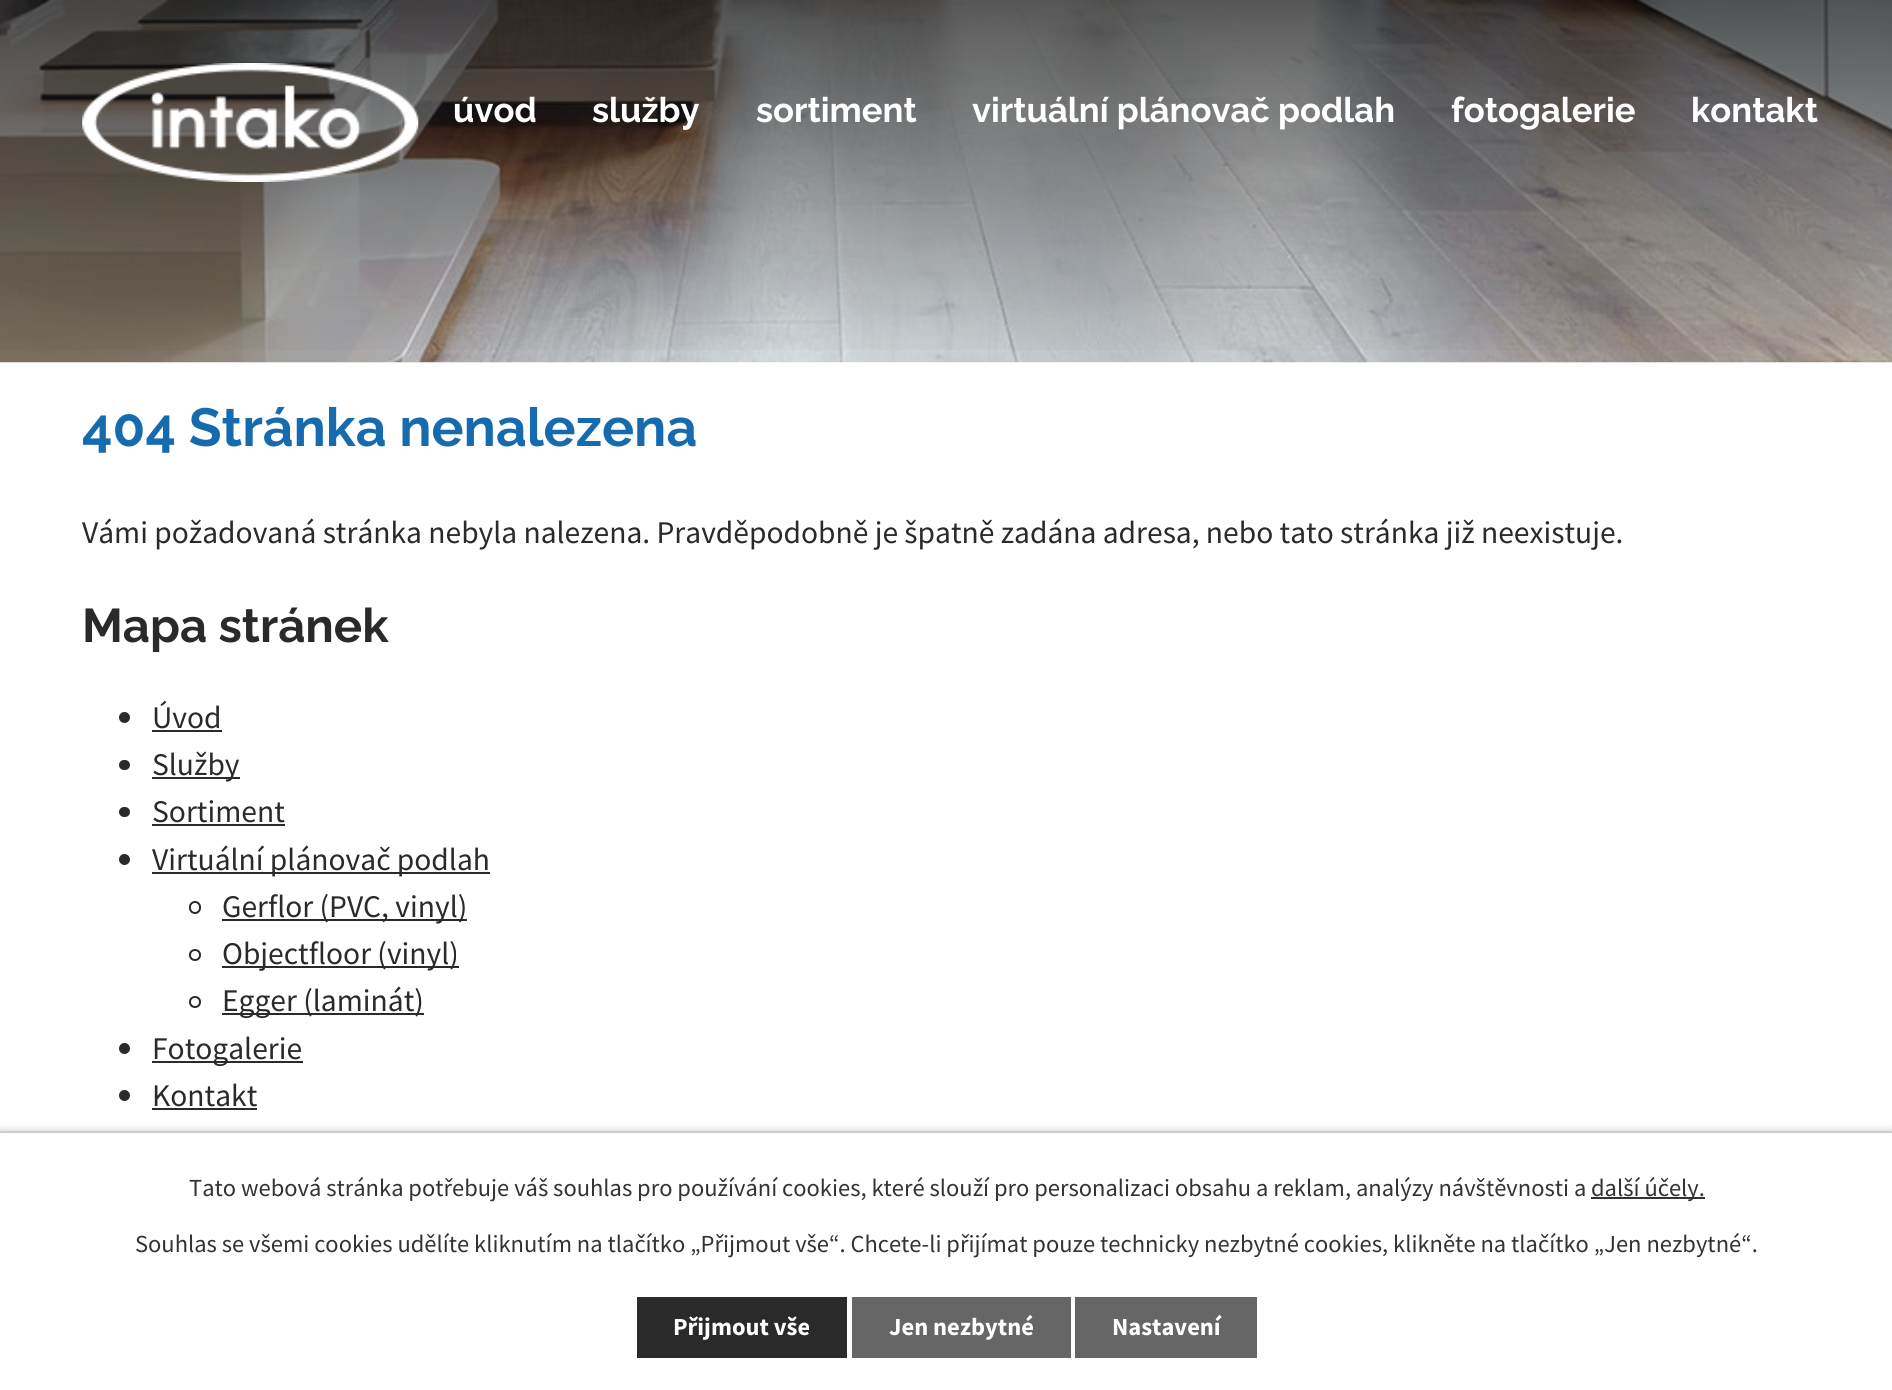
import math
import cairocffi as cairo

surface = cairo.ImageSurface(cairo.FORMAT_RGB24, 1892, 1390)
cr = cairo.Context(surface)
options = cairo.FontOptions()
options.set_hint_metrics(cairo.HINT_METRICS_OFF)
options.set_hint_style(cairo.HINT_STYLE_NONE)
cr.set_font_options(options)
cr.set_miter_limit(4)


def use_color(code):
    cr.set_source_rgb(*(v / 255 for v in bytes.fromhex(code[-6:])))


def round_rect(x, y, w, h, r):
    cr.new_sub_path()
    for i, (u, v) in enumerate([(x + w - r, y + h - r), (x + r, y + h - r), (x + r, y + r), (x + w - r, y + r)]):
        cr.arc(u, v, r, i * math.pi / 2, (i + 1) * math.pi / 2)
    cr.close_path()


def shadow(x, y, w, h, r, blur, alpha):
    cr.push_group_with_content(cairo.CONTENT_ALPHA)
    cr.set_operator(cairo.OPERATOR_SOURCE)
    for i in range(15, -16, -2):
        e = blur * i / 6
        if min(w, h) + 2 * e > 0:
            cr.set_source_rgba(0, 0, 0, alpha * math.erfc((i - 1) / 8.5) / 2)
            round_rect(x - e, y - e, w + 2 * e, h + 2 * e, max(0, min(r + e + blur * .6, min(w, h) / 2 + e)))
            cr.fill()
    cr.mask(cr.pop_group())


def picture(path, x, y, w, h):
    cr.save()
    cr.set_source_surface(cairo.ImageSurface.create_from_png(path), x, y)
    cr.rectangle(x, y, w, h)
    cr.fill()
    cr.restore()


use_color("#ffffff")
cr.paint()
picture("img1.png", 0, 0, 1892, 363)
gradient = cairo.LinearGradient(947, 0, 947, 362)
gradient.add_color_stop_rgba(0, 0, 0, 0, 0.63)
gradient.add_color_stop_rgba(1, 0, 0, 0, 0)
cr.set_source(gradient)
cr.rectangle(0, 0, 1892, 350)
cr.fill()
picture("img2.png", 82, 63, 337, 119)
cr.select_font_face("Raleway Thin")
cr.set_font_size(34.6)
use_color("#ffffff")
cr.move_to(453, 122)
cr.show_text("úvod")
cr.move_to(592, 122)
cr.show_text("služby")
cr.move_to(756, 122)
cr.show_text("sortiment")
cr.move_to(972, 122)
cr.show_text("virtuální plánovač podlah")
cr.move_to(1451, 122)
cr.show_text("fotogalerie")
cr.move_to(1691, 122)
cr.show_text("kontakt")
cr.set_font_size(53.5)
use_color("#166baf")
cr.move_to(82, 446)
cr.show_text("404 Stránka nenalezena")
cr.select_font_face("Source Sans Pro")
cr.set_font_size(31.5)
use_color("#2a2a2a")
cr.move_to(82, 543)
cr.show_text("Vámi požadovaná stránka nebyla nalezena. Pravděpodobně je špatně zadána adresa, nebo tato stránka již neexistuje.")
cr.select_font_face("Raleway Thin")
cr.set_font_size(47.25)
cr.move_to(82, 642)
cr.show_text("Mapa stránek")
cr.new_path()
cr.arc(124.5, 717.5, 5.5, 0, 2 * math.pi)
cr.fill()
cr.select_font_face("Source Sans Pro")
cr.set_font_size(31.5)
cr.move_to(152, 728)
cr.show_text("Úvod")
cr.rectangle(152, 730, 70, 2)
cr.fill()
round_rect(119, 760, 11, 10, 5)
cr.fill()
cr.rectangle(152, 777, 88, 2)
cr.fill()
cr.move_to(152, 775)
cr.show_text("Služby")
round_rect(119, 807, 11, 10, 5)
cr.fill()
cr.move_to(152, 822)
cr.show_text("Sortiment")
cr.rectangle(152, 824, 133, 2)
cr.fill()
cr.arc(124.5, 859.5, 5.5, 0, 2 * math.pi)
cr.fill()
cr.rectangle(152, 872, 338, 2)
cr.fill()
cr.move_to(152, 870)
cr.show_text("Virtuální plánovač podlah")
round_rect(190, 902, 10, 11, 5)
cr.stroke()
cr.rectangle(222, 919, 245, 2)
cr.fill()
cr.move_to(222, 917)
cr.show_text("Gerflor (PVC, vinyl)")
cr.new_path()
cr.arc(195, 955, 5, 0, 2 * math.pi)
cr.stroke()
cr.rectangle(222, 966, 237, 2)
cr.fill()
cr.move_to(222, 964)
cr.show_text("Objectfloor (vinyl)")
cr.new_path()
cr.arc(195, 1002, 5, 0, 2 * math.pi)
cr.stroke()
cr.rectangle(222, 1013, 202, 2)
cr.fill()
cr.move_to(222, 1011)
cr.show_text("Egger (laminát)")
cr.new_path()
cr.arc(124.5, 1048.5, 5.5, 0, 2 * math.pi)
cr.fill()
cr.rectangle(152, 1061, 151, 2)
cr.fill()
cr.move_to(152, 1059)
cr.show_text("Fotogalerie")
cr.new_path()
cr.arc(124.5, 1095.5, 5.5, 0, 2 * math.pi)
cr.fill()
cr.move_to(152, 1106)
cr.show_text("Kontakt")
cr.rectangle(152, 1108, 105, 2)
cr.fill()
use_color("#000000")
shadow(0, 1131, 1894, 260, 0, 4.5, 0.2)
use_color("#ffffff")
cr.rectangle(0, 1133, 1892, 257)
cr.fill()
use_color("#cccccc")
cr.rectangle(0, 1131, 1892, 2)
cr.fill()
cr.set_font_size(24.5)
use_color("#333333")
cr.move_to(189, 1196)
cr.show_text("Tato webová stránka potřebuje váš souhlas pro používání cookies, které slouží pro personalizaci obsahu a reklam, analýzy návštěvnosti a")
cr.rectangle(1591, 1197, 114, 2)
cr.fill()
cr.move_to(1591, 1196)
cr.show_text("další účely.")
cr.move_to(135, 1252)
cr.show_text("Souhlas se všemi cookies udělíte kliknutím na tlačítko „Přijmout vše“. Chcete-li přijímat pouze technicky nezbytné cookies, klikněte na tlačítko „Jen nezbytné“.")
use_color("#2a2a2a")
cr.rectangle(637, 1297, 210, 61)
cr.fill()
cr.select_font_face("Source Sans Pro", cairo.FONT_SLANT_NORMAL, cairo.FONT_WEIGHT_BOLD)
use_color("#ffffff")
cr.move_to(673, 1335)
cr.show_text("Přijmout vše")
use_color("#666666")
cr.rectangle(852, 1297, 219, 61)
cr.fill()
use_color("#ffffff")
cr.move_to(889, 1335)
cr.show_text("Jen nezbytné")
use_color("#666666")
cr.rectangle(1075, 1297, 182, 61)
cr.fill()
use_color("#ffffff")
cr.move_to(1112, 1335)
cr.show_text("Nastavení")
surface.write_to_png("result.png")
